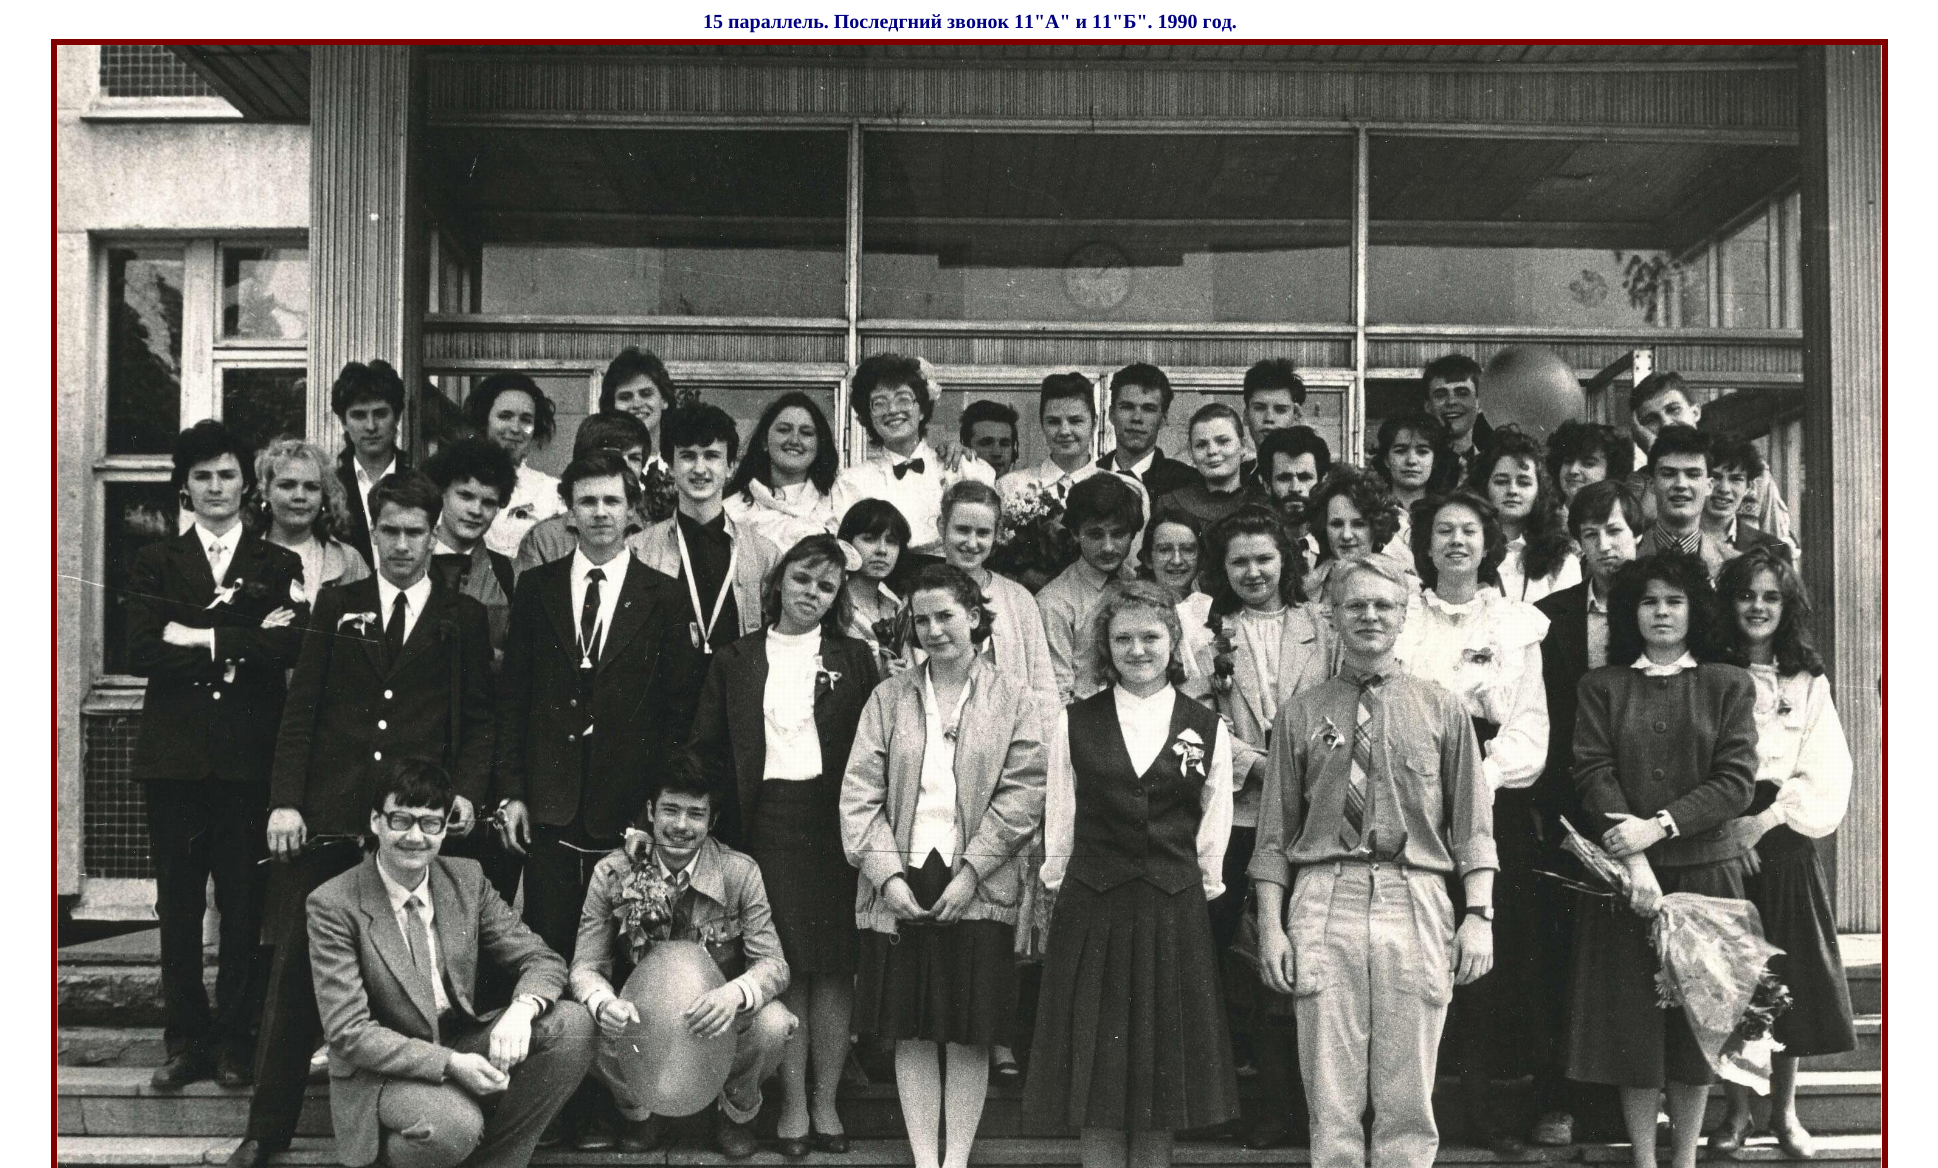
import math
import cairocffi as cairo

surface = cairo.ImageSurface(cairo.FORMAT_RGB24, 1938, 1168)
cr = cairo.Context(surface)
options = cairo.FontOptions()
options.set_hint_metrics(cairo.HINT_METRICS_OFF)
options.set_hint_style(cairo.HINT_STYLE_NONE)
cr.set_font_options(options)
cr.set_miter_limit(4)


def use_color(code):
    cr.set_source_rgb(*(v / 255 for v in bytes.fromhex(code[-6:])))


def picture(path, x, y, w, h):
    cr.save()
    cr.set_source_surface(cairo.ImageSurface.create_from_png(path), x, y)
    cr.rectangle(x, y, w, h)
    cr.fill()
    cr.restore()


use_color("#ffffff")
cr.paint()
cr.select_font_face("Liberation Serif", cairo.FONT_SLANT_NORMAL, cairo.FONT_WEIGHT_BOLD)
cr.set_font_size(20)
use_color("#000080")
cr.move_to(703, 28)
cr.show_text("15 параллель. Последгний звонок 11\"А\" и 11\"Б\". 1990 год.")
cr.rectangle(54, 42, 1831, 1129)
use_color("#800000")
cr.set_line_width(6)
cr.stroke()
picture("img1.png", 57, 45, 1825, 1123)
surface.write_to_png("result.png")
